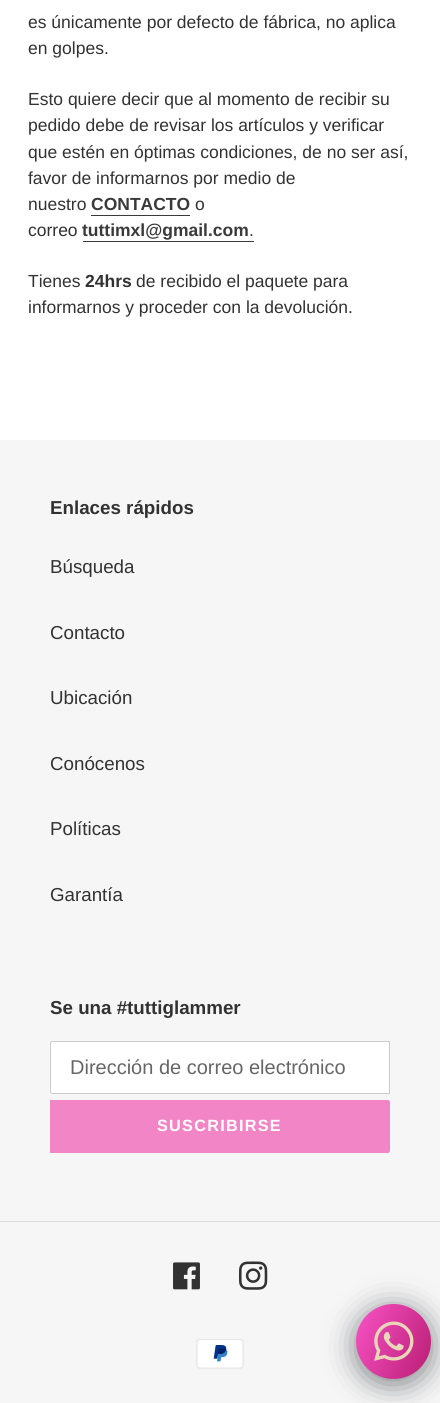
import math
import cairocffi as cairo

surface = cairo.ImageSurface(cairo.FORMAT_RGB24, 440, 1403)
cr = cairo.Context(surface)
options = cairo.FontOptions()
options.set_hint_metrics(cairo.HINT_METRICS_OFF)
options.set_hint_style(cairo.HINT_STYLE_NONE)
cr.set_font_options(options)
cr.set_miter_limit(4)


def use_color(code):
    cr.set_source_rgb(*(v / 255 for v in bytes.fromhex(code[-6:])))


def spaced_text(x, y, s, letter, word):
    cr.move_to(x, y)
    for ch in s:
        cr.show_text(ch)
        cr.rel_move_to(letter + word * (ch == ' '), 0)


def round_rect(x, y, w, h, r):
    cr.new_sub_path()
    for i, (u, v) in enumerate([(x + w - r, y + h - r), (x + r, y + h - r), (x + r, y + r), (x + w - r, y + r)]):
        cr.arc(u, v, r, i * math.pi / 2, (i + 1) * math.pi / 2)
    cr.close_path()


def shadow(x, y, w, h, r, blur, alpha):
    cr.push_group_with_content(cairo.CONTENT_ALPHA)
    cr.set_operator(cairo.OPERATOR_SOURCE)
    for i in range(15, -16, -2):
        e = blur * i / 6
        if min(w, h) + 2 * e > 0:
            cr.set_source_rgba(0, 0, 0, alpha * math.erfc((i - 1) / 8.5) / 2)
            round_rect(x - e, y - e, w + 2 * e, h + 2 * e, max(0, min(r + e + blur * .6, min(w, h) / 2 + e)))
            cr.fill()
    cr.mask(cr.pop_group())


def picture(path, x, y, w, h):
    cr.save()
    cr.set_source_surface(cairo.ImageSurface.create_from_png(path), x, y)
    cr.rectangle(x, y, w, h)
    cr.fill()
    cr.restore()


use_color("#ffffff")
cr.paint()
cr.select_font_face("Liberation Sans")
cr.set_font_size(17.5)
use_color("#333232")
cr.move_to(28, 28)
cr.show_text("es únicamente por defecto de fábrica, no aplica")
cr.move_to(28, 54)
cr.show_text("en golpes.")
cr.move_to(28, 105)
cr.show_text("Esto quiere decir que al momento de recibir su")
cr.move_to(28, 131)
cr.show_text("pedido debe de revisar los artículos y verificar")
cr.move_to(28, 158)
cr.show_text("que estén en óptimas condiciones, de no ser así,")
cr.move_to(28, 184)
cr.show_text("favor de informarnos por medio de")
cr.move_to(28, 210)
cr.show_text("nuestro")
cr.select_font_face("Liberation Sans", cairo.FONT_SLANT_NORMAL, cairo.FONT_WEIGHT_BOLD)
use_color("#3a3a3a")
cr.move_to(91, 210)
cr.show_text("CONTACTO")
cr.rectangle(91, 215, 99, 1)
cr.fill()
cr.select_font_face("Liberation Sans")
use_color("#333232")
cr.move_to(195, 210)
cr.show_text("o")
cr.move_to(28, 236)
cr.show_text("correo")
cr.select_font_face("Liberation Sans", cairo.FONT_SLANT_NORMAL, cairo.FONT_WEIGHT_BOLD)
use_color("#3a3a3a")
cr.move_to(82, 236)
cr.show_text("tuttimxl@gmail.com")
cr.rectangle(83, 241, 171, 1)
cr.fill()
cr.select_font_face("Liberation Sans")
cr.move_to(249, 236)
cr.show_text(".")
use_color("#333232")
cr.move_to(28, 287)
cr.show_text("Tienes")
cr.select_font_face("Liberation Sans", cairo.FONT_SLANT_NORMAL, cairo.FONT_WEIGHT_BOLD)
cr.move_to(85, 287)
cr.show_text("24hrs")
cr.select_font_face("Liberation Sans")
cr.move_to(136, 287)
cr.show_text("de recibido el paquete para")
cr.move_to(28, 313)
cr.show_text("informarnos y proceder con la devolución.")
use_color("#f6f6f6")
cr.rectangle(0, 440, 440, 963)
cr.fill()
cr.select_font_face("Liberation Sans", cairo.FONT_SLANT_NORMAL, cairo.FONT_WEIGHT_BOLD)
cr.set_font_size(18.75)
use_color("#333232")
cr.move_to(50, 514)
cr.show_text("Enlaces rápidos")
cr.select_font_face("Liberation Sans")
cr.move_to(50, 573)
cr.show_text("Búsqueda")
cr.move_to(50, 639)
cr.show_text("Contacto")
cr.move_to(50, 704)
cr.show_text("Ubicación")
cr.move_to(50, 770)
cr.show_text("Conócenos")
cr.move_to(50, 835)
cr.show_text("Políticas")
cr.move_to(50, 901)
cr.show_text("Garantía")
cr.select_font_face("Liberation Sans", cairo.FONT_SLANT_NORMAL, cairo.FONT_WEIGHT_BOLD)
cr.move_to(50, 1014)
cr.show_text("Se una #tuttiglammer")
use_color("#ffffff")
cr.new_path()
cr.move_to(52.5, 1041.5)
cr.line_to(389.5, 1041.5)
cr.line_to(389.5, 1093.5)
cr.line_to(52.5, 1093.5)
cr.curve_to(51.5, 1093.5, 50.5, 1092.5, 50.5, 1091.5)
cr.line_to(50.5, 1043.5)
cr.curve_to(50.5, 1042.5, 51.5, 1041.5, 52.5, 1041.5)
cr.close_path()
cr.fill_preserve()
use_color("#cccccc")
cr.set_line_width(1)
cr.stroke()
cr.select_font_face("Liberation Sans")
cr.set_font_size(20)
use_color("#666666")
cr.move_to(70, 1074)
cr.show_text("Dirección de correo electrónico")
use_color("#f285c5")
cr.new_path()
cr.move_to(50, 1100)
cr.line_to(387.5, 1100)
cr.curve_to(389, 1100, 390, 1101, 390, 1102.5)
cr.line_to(390, 1150.5)
cr.curve_to(390, 1152, 389, 1153, 387.5, 1153)
cr.line_to(50, 1153)
cr.close_path()
cr.fill()
cr.select_font_face("Liberation Sans", cairo.FONT_SLANT_NORMAL, cairo.FONT_WEIGHT_BOLD)
cr.set_font_size(16.25)
use_color("#ffffff")
spaced_text(157, 1131, "SUSCRIBIRSE", 1.25, 0)
use_color("#dddddd")
cr.rectangle(0, 1221, 440, 1)
cr.fill()
picture("img1.png", 173, 1262, 27, 28)
picture("img2.png", 239, 1261, 29, 29)
picture("img3.png", 196, 1339, 48, 30)
use_color("#020610")
shadow(356, 1309, 75, 75, 37.5, 15, 0.5)
gradient = cairo.LinearGradient(349, 1320, 439, 1362)
gradient.add_color_stop_rgba(0, 0.976, 0.325, 0.776, 1)
gradient.add_color_stop_rgba(1, 0.725, 0.114, 0.451, 1)
cr.set_source(gradient)
cr.arc(393.5, 1341.5, 37.5, 0, 2 * math.pi)
cr.fill()
picture("img4.png", 374, 1321, 40, 40)
surface.write_to_png("result.png")
